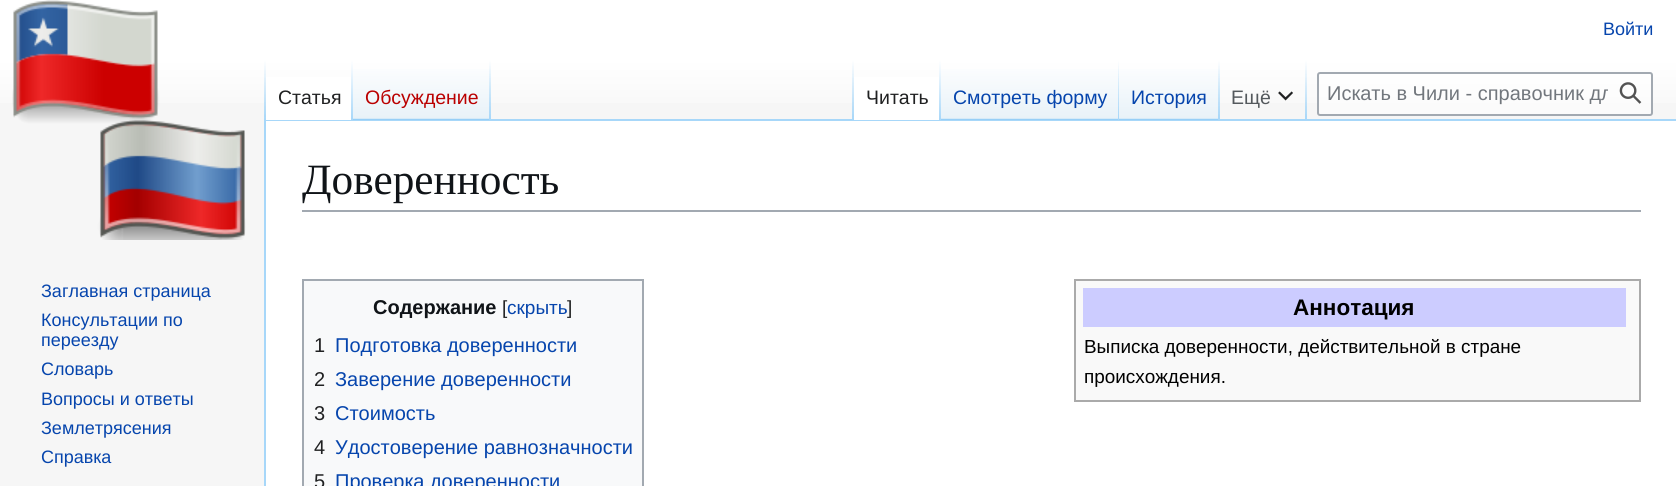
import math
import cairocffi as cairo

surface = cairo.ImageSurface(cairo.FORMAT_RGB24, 1676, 486)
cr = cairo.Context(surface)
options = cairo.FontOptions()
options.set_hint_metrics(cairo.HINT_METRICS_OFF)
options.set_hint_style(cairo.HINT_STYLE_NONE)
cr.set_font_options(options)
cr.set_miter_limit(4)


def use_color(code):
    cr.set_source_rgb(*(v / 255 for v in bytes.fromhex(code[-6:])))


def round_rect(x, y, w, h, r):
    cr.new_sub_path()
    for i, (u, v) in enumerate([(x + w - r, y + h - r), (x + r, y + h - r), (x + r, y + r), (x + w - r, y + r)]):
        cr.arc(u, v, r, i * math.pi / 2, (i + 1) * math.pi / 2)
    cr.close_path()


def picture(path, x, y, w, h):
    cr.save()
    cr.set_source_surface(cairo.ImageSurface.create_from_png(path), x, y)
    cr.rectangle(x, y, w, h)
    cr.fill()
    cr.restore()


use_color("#f6f6f6")
cr.paint()
gradient = cairo.LinearGradient(839, 0, 839, 120)
gradient.add_color_stop_rgba(0.5, 1, 1, 1, 1)
gradient.add_color_stop_rgba(1, 0.965, 0.965, 0.965, 1)
cr.set_source(gradient)
cr.rectangle(0, 0, 1676, 103)
cr.fill()
cr.select_font_face("Liberation Sans")
cr.set_font_size(18)
use_color("#0645ad")
cr.move_to(1603, 35)
cr.show_text("Войти")
use_color("#a7d7f9")
cr.rectangle(264, 119, 1412, 2)
cr.fill()
cr.rectangle(264, 119, 2, 367)
cr.fill()
gradient = cairo.LinearGradient(265, 60, 265, 120)
gradient.add_color_stop_rgba(0, 0.655, 0.843, 0.976, 0)
gradient.add_color_stop_rgba(1, 0.655, 0.843, 0.976, 1)
cr.set_source(gradient)
cr.rectangle(264, 60, 2, 60)
cr.fill()
use_color("#ffffff")
cr.rectangle(266, 77, 85, 43)
cr.fill()
gradient = cairo.LinearGradient(352, 60, 352, 120)
gradient.add_color_stop_rgba(0, 1, 1, 1, 1)
gradient.add_color_stop_rgba(1, 0.655, 0.843, 0.976, 1)
cr.set_source(gradient)
cr.rectangle(351, 60, 2, 60)
cr.fill()
cr.set_font_size(19.5)
use_color("#202122")
cr.move_to(278, 104)
cr.show_text("Статья")
gradient = cairo.LinearGradient(422, 120, 422, 60)
gradient.add_color_stop_rgba(0, 0.467, 0.757, 0.965, 1)
gradient.add_color_stop_rgba(0.03, 0.91, 0.949, 0.973, 1)
gradient.add_color_stop_rgba(1, 1, 1, 1, 1)
cr.set_source(gradient)
cr.rectangle(353, 69, 138, 51)
cr.fill()
gradient = cairo.LinearGradient(490, 60, 490, 120)
gradient.add_color_stop_rgba(0, 0.655, 0.843, 0.976, 0)
gradient.add_color_stop_rgba(1, 0.655, 0.843, 0.976, 1)
cr.set_source(gradient)
cr.rectangle(489, 60, 2, 60)
cr.fill()
use_color("#ba0000")
cr.move_to(365, 104)
cr.show_text("Обсуждение")
gradient = cairo.LinearGradient(853, 60, 853, 120)
gradient.add_color_stop_rgba(0, 0.655, 0.843, 0.976, 0)
gradient.add_color_stop_rgba(1, 0.655, 0.843, 0.976, 1)
cr.set_source(gradient)
cr.rectangle(852, 60, 2, 60)
cr.fill()
use_color("#ffffff")
cr.rectangle(854, 77, 85, 43)
cr.fill()
gradient = cairo.LinearGradient(940, 60, 940, 120)
gradient.add_color_stop_rgba(0, 1, 1, 1, 1)
gradient.add_color_stop_rgba(1, 0.655, 0.843, 0.976, 1)
cr.set_source(gradient)
cr.rectangle(939, 60, 2, 60)
cr.fill()
use_color("#202122")
cr.move_to(866, 104)
cr.show_text("Читать")
gradient = cairo.LinearGradient(1030, 120, 1030, 60)
gradient.add_color_stop_rgba(0, 0.467, 0.757, 0.965, 1)
gradient.add_color_stop_rgba(0.03, 0.91, 0.949, 0.973, 1)
gradient.add_color_stop_rgba(1, 1, 1, 1, 1)
cr.set_source(gradient)
cr.rectangle(941, 69, 178, 51)
cr.fill()
gradient = cairo.LinearGradient(1118, 60, 1118, 120)
gradient.add_color_stop_rgba(0, 0.655, 0.843, 0.976, 0)
gradient.add_color_stop_rgba(1, 0.655, 0.843, 0.976, 1)
cr.set_source(gradient)
cr.rectangle(1118, 60, 1, 60)
cr.fill()
use_color("#0645ad")
cr.move_to(953, 104)
cr.show_text("Смотреть форму")
gradient = cairo.LinearGradient(1169, 120, 1169, 60)
gradient.add_color_stop_rgba(0, 0.467, 0.757, 0.965, 1)
gradient.add_color_stop_rgba(0.03, 0.91, 0.949, 0.973, 1)
gradient.add_color_stop_rgba(1, 1, 1, 1, 1)
cr.set_source(gradient)
cr.rectangle(1119, 69, 101, 51)
cr.fill()
gradient = cairo.LinearGradient(1219, 60, 1219, 120)
gradient.add_color_stop_rgba(0, 0.655, 0.843, 0.976, 0)
gradient.add_color_stop_rgba(1, 0.655, 0.843, 0.976, 1)
cr.set_source(gradient)
cr.rectangle(1218, 60, 2, 60)
cr.fill()
use_color("#0645ad")
cr.move_to(1131, 104)
cr.show_text("История")
gradient = cairo.LinearGradient(1306, 60, 1306, 120)
gradient.add_color_stop_rgba(0, 0.655, 0.843, 0.976, 0)
gradient.add_color_stop_rgba(1, 0.655, 0.843, 0.976, 1)
cr.set_source(gradient)
cr.rectangle(1305, 60, 2, 60)
cr.fill()
use_color("#54595d")
cr.move_to(1231, 104)
cr.show_text("Ещё")
picture("img1.png", 1278, 91, 15, 10)
cr.set_source_rgba(1, 1, 1, 0.5)
round_rect(1318, 73, 334, 42, 2)
cr.fill_preserve()
use_color("#a2a9b1")
cr.stroke()
cr.save()
cr.rectangle(1328, 83, 280, 22)
cr.clip()
cr.set_font_size(20)
use_color("#72777d")
cr.move_to(1327, 100)
cr.show_text("Искать в Чили - справочник дл")
cr.restore()
picture("img2.png", 1619, 82, 23, 22)
picture("img3.png", 12, 0, 234, 240)
cr.set_font_size(18)
use_color("#0645ad")
cr.move_to(41, 297)
cr.show_text("Заглавная страница")
cr.move_to(41, 326)
cr.show_text("Консультации по")
cr.move_to(41, 346)
cr.show_text("переезду")
cr.move_to(41, 375)
cr.show_text("Словарь")
cr.move_to(41, 405)
cr.show_text("Вопросы и ответы")
cr.move_to(41, 434)
cr.show_text("Землетрясения")
cr.move_to(41, 463)
cr.show_text("Справка")
use_color("#ffffff")
cr.rectangle(266, 121, 1410, 365)
cr.fill()
use_color("#a2a9b1")
cr.rectangle(302, 210, 1339, 2)
cr.fill()
cr.select_font_face("Liberation Serif")
cr.set_font_size(43.25)
use_color("#101418")
cr.move_to(302, 194)
cr.show_text("Доверенность")
use_color("#f8f9fa")
cr.rectangle(303, 280, 340, 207)
cr.fill_preserve()
use_color("#a2a9b1")
cr.stroke()
cr.select_font_face("Liberation Sans", cairo.FONT_SLANT_NORMAL, cairo.FONT_WEIGHT_BOLD)
cr.set_font_size(20)
use_color("#101418")
cr.move_to(373, 314)
cr.show_text("Содержание")
cr.select_font_face("Liberation Sans")
cr.set_font_size(19)
use_color("#202122")
cr.move_to(502, 314)
cr.show_text("[")
use_color("#0645ad")
cr.move_to(507, 314)
cr.show_text("скрыть")
use_color("#202122")
cr.move_to(567, 314)
cr.show_text("]")
cr.set_font_size(20)
cr.move_to(314, 352)
cr.show_text("1")
use_color("#0645ad")
cr.move_to(335, 352)
cr.show_text("Подготовка доверенности")
use_color("#202122")
cr.move_to(314, 386)
cr.show_text("2")
use_color("#0645ad")
cr.move_to(335, 386)
cr.show_text("Заверение доверенности")
use_color("#202122")
cr.move_to(314, 420)
cr.show_text("3")
use_color("#0645ad")
cr.move_to(335, 420)
cr.show_text("Стоимость")
use_color("#202122")
cr.move_to(314, 454)
cr.show_text("4")
use_color("#0645ad")
cr.move_to(335, 454)
cr.show_text("Удостоверение равнозначности")
use_color("#202122")
cr.move_to(314, 488)
cr.show_text("5")
use_color("#0645ad")
cr.move_to(335, 488)
cr.show_text("Проверка доверенности")
use_color("#f9f9f9")
cr.rectangle(1075, 280, 565, 121)
cr.fill_preserve()
use_color("#aaaaaa")
cr.stroke()
use_color("#ccccff")
cr.rectangle(1083, 288, 543, 39)
cr.fill()
cr.select_font_face("Liberation Sans", cairo.FONT_SLANT_NORMAL, cairo.FONT_WEIGHT_BOLD)
cr.set_font_size(22.5)
use_color("#000000")
cr.move_to(1293, 315)
cr.show_text("Аннотация")
cr.select_font_face("Liberation Sans")
cr.set_font_size(18.9)
cr.move_to(1084, 353)
cr.show_text("Выписка доверенности, действительной в стране")
cr.move_to(1084, 383)
cr.show_text("происхождения.")
surface.write_to_png("result.png")
